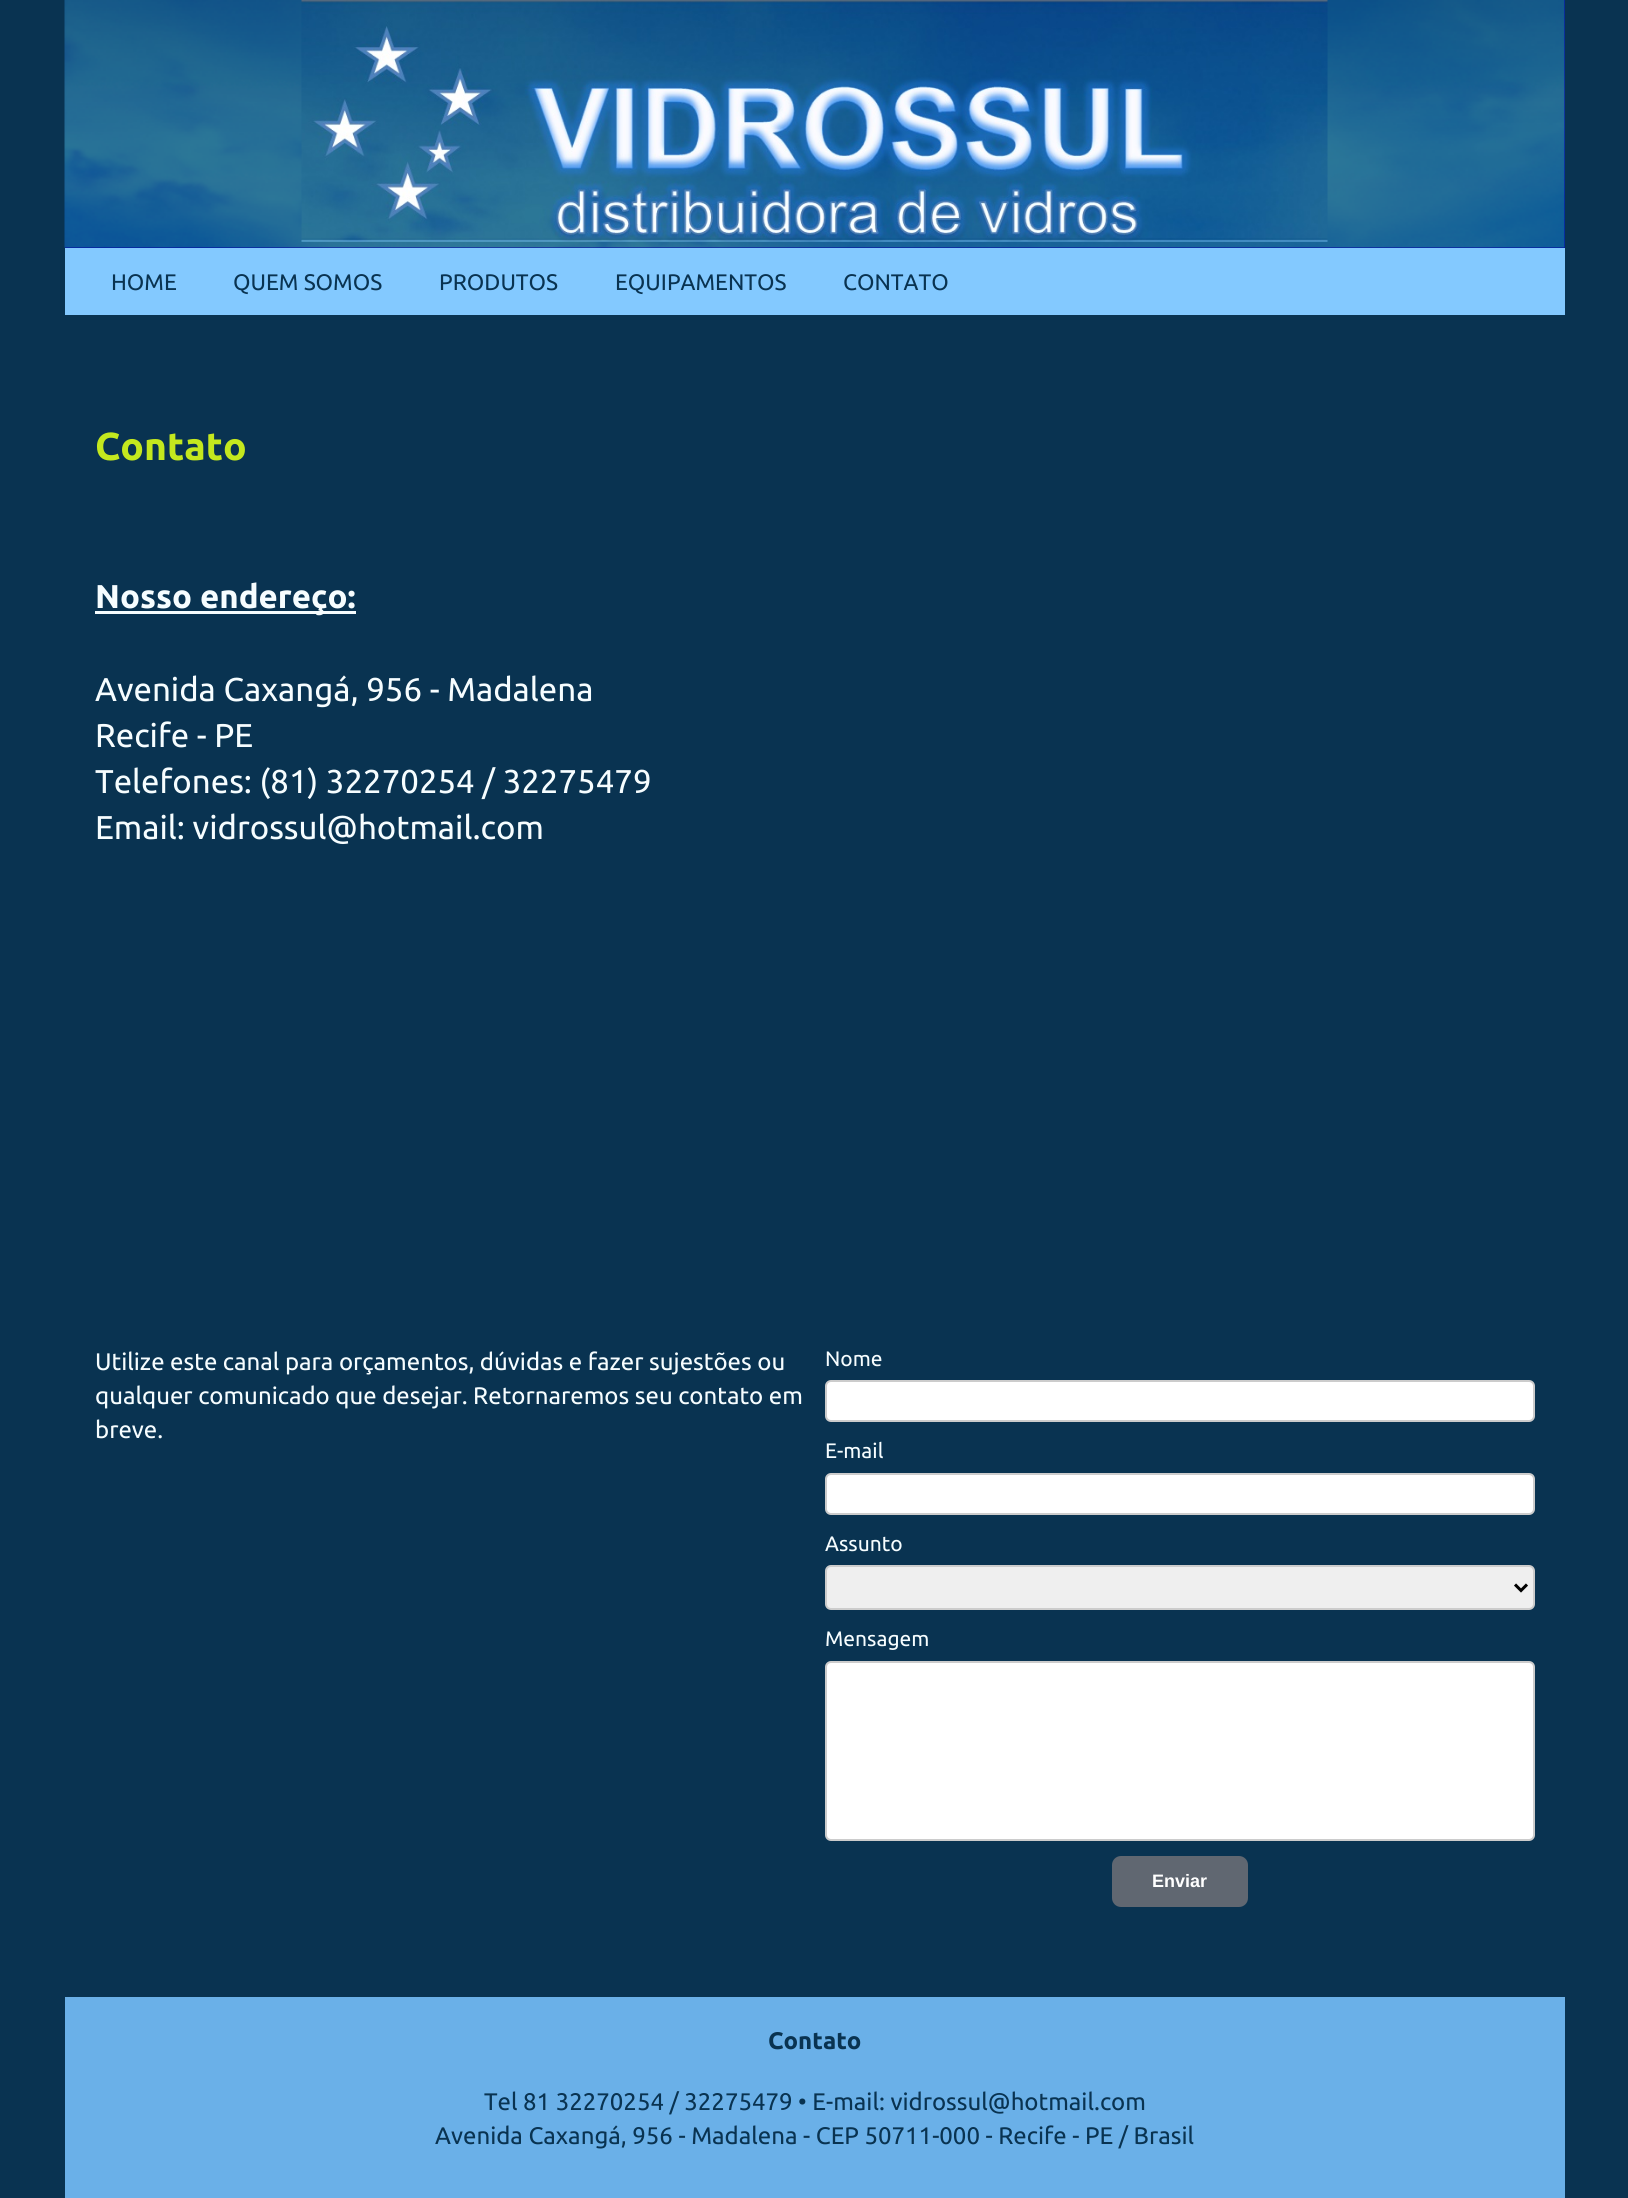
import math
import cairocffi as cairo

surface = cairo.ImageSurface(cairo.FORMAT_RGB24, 1628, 2198)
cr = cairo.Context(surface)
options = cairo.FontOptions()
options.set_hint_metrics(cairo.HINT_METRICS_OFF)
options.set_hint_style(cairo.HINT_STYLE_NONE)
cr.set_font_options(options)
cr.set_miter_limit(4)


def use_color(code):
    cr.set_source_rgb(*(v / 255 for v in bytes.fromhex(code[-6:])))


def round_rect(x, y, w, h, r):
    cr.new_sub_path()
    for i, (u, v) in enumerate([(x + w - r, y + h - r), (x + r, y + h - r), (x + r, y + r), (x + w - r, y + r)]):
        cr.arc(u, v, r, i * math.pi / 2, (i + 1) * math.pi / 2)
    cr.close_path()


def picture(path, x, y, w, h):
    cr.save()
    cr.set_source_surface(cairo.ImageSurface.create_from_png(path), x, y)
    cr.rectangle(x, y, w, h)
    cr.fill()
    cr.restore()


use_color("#093351")
cr.paint()
use_color("#0000a8")
cr.rectangle(65, 0, 1500, 248)
cr.fill()
picture("img1.png", 64, 0, 1501, 248)
picture("img2.png", 301, 0, 1027, 242)
use_color("#83c9ff")
cr.rectangle(65, 248, 1500, 67)
cr.fill()
cr.select_font_face("Ubuntu")
cr.set_font_size(22.5)
use_color("#093351")
cr.move_to(111, 290)
cr.show_text("HOME")
cr.move_to(233, 290)
cr.show_text("QUEM SOMOS")
cr.move_to(439, 290)
cr.show_text("PRODUTOS")
cr.move_to(615, 290)
cr.show_text("EQUIPAMENTOS")
cr.move_to(843, 290)
cr.show_text("CONTATO")
cr.select_font_face("Ubuntu", cairo.FONT_SLANT_NORMAL, cairo.FONT_WEIGHT_BOLD)
cr.set_font_size(39)
use_color("#c4e81e")
cr.move_to(95, 460)
cr.show_text("Contato")
use_color("#f6fdff")
cr.rectangle(95, 611, 261, 3)
cr.fill()
cr.set_font_size(33)
cr.move_to(95, 608)
cr.show_text("Nosso endereço:")
cr.select_font_face("Ubuntu")
cr.move_to(95, 701)
cr.show_text("Avenida Caxangá, 956 - Madalena")
cr.move_to(95, 747)
cr.show_text("Recife - PE")
cr.move_to(95, 793)
cr.show_text("Telefones: (81) 32270254 / 32275479")
cr.move_to(95, 839)
cr.show_text("Email: vidrossul@hotmail.com")
cr.set_font_size(24)
cr.move_to(95, 1370)
cr.show_text("Utilize este canal para orçamentos, dúvidas e fazer sujestões ou")
cr.move_to(95, 1404)
cr.show_text("qualquer comunicado que desejar. Retornaremos seu contato em")
cr.move_to(95, 1438)
cr.show_text("breve.")
cr.set_font_size(21)
cr.move_to(825, 1366)
cr.show_text("Nome")
use_color("#ffffff")
round_rect(826, 1381, 708, 40, 5)
cr.fill_preserve()
use_color("#cccccc")
cr.stroke()
use_color("#f6fdff")
cr.move_to(825, 1458)
cr.show_text("E-mail")
use_color("#ffffff")
round_rect(826, 1474, 708, 40, 5)
cr.fill_preserve()
use_color("#cccccc")
cr.stroke()
use_color("#f6fdff")
cr.move_to(825, 1551)
cr.show_text("Assunto")
use_color("#efefef")
round_rect(826, 1566, 708, 43, 5)
cr.fill_preserve()
use_color("#cccccc")
cr.stroke()
cr.new_path()
cr.move_to(1515, 1584.5)
cr.line_to(1521, 1590.5)
cr.line_to(1527, 1584.5)
use_color("#000000")
cr.set_line_width(3)
cr.stroke()
use_color("#f6fdff")
cr.move_to(825, 1646)
cr.show_text("Mensagem")
use_color("#ffffff")
round_rect(826, 1662, 708, 178, 5)
cr.fill_preserve()
use_color("#cccccc")
cr.set_line_width(2)
cr.stroke()
use_color("#606771")
round_rect(1112, 1856, 136, 51, 9)
cr.fill()
cr.select_font_face("Liberation Sans", cairo.FONT_SLANT_NORMAL, cairo.FONT_WEIGHT_BOLD)
cr.set_font_size(18)
use_color("#ffffff")
cr.move_to(1152, 1887)
cr.show_text("Enviar")
use_color("#6ab0e8")
cr.rectangle(65, 1997, 1500, 201)
cr.fill()
cr.select_font_face("Ubuntu", cairo.FONT_SLANT_NORMAL, cairo.FONT_WEIGHT_BOLD)
cr.set_font_size(24)
use_color("#093351")
cr.move_to(768, 2049)
cr.show_text("Contato")
cr.select_font_face("Ubuntu")
cr.move_to(484, 2110)
cr.show_text("Tel 81 32270254 / 32275479 • E-mail: vidrossul@hotmail.com")
cr.move_to(435, 2144)
cr.show_text("Avenida Caxangá, 956 - Madalena - CEP 50711-000 - Recife - PE / Brasil")
surface.write_to_png("result.png")
